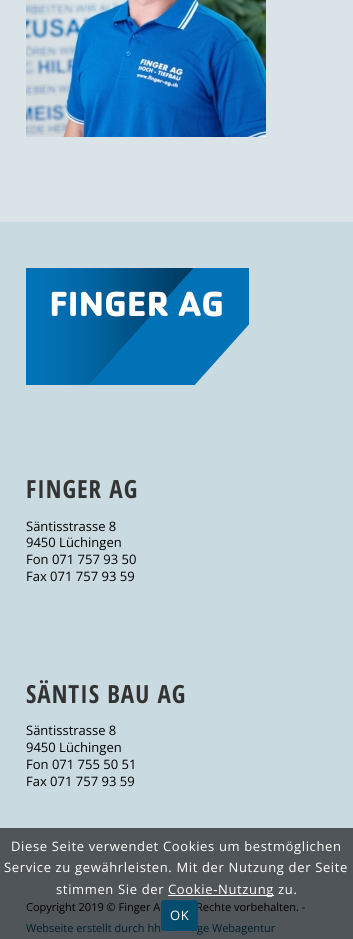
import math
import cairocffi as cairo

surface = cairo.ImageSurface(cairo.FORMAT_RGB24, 353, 939)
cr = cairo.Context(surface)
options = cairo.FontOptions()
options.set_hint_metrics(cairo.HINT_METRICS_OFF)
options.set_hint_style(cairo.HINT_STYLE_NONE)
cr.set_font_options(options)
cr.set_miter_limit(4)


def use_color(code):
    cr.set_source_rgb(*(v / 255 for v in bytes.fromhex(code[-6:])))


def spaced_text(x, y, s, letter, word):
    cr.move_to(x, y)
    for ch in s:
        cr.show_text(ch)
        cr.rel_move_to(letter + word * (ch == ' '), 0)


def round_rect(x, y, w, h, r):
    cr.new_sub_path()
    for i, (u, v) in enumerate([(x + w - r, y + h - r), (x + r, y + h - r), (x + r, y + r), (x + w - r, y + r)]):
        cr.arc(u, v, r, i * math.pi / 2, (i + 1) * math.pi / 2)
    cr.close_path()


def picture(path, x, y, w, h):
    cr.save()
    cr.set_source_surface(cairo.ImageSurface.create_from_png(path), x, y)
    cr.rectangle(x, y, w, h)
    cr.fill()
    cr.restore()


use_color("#dae3e8")
cr.paint()
picture("img1.png", 26, 0, 240, 137)
use_color("#cadae1")
cr.rectangle(0, 222, 353, 606)
cr.fill()
use_color("#4f5558")
cr.rectangle(0, 828, 353, 111)
cr.fill()
picture("img2.png", 26, 268, 223, 117)
cr.select_font_face("Open Sans Condensed", cairo.FONT_SLANT_NORMAL, cairo.FONT_WEIGHT_BOLD)
cr.set_font_size(25)
use_color("#333333")
spaced_text(26, 498, "FINGER AG", 1, 0)
cr.select_font_face("Open Sans")
cr.set_font_size(13)
use_color("#000000")
cr.move_to(26, 531)
cr.show_text("Säntisstrasse 8")
cr.move_to(26, 547)
cr.show_text("9450 Lüchingen")
cr.move_to(26, 564)
cr.show_text("Fon 071 757 93 50")
cr.move_to(26, 581)
cr.show_text("Fax 071 757 93 59")
cr.select_font_face("Open Sans Condensed", cairo.FONT_SLANT_NORMAL, cairo.FONT_WEIGHT_BOLD)
cr.set_font_size(25)
use_color("#333333")
spaced_text(26, 703, "SÄNTIS BAU AG", 1, 0)
cr.select_font_face("Open Sans")
cr.set_font_size(13)
use_color("#000000")
cr.move_to(26, 735)
cr.show_text("Säntisstrasse 8")
cr.move_to(26, 752)
cr.show_text("9450 Lüchingen")
cr.move_to(26, 769)
cr.show_text("Fon 071 755 50 51")
cr.move_to(26, 786)
cr.show_text("Fax 071 757 93 59")
cr.set_font_size(11)
cr.move_to(26, 911)
cr.show_text("Copyright 2019 © Finger A")
cr.move_to(196, 911)
cr.show_text("Rechte vorbehalten. -")
use_color("#021e2b")
cr.move_to(26, 932)
cr.show_text("Webseite erstellt durch hh")
cr.move_to(197, 932)
cr.show_text("ge Webagentur")
cr.set_font_size(13)
use_color("#ffffff")
spaced_text(11, 851, "Diese Seite verwendet Cookies um bestmöglichen", 0.65, 0)
spaced_text(4, 872, "Service zu gewährleisten. Mit der Nutzung der Seite", 0.65, 0)
spaced_text(56, 894, "stimmen Sie der", 0.65, 0)
cr.rectangle(168, 895, 106, 1)
cr.fill()
spaced_text(168, 894, "Cookie-Nutzung zu.", 0.65, 0)
use_color("#044c6d")
round_rect(161, 900, 37, 31, 3)
cr.fill()
use_color("#ffffff")
spaced_text(170, 920, "OK", 0.65, 0)
surface.write_to_png("result.png")
